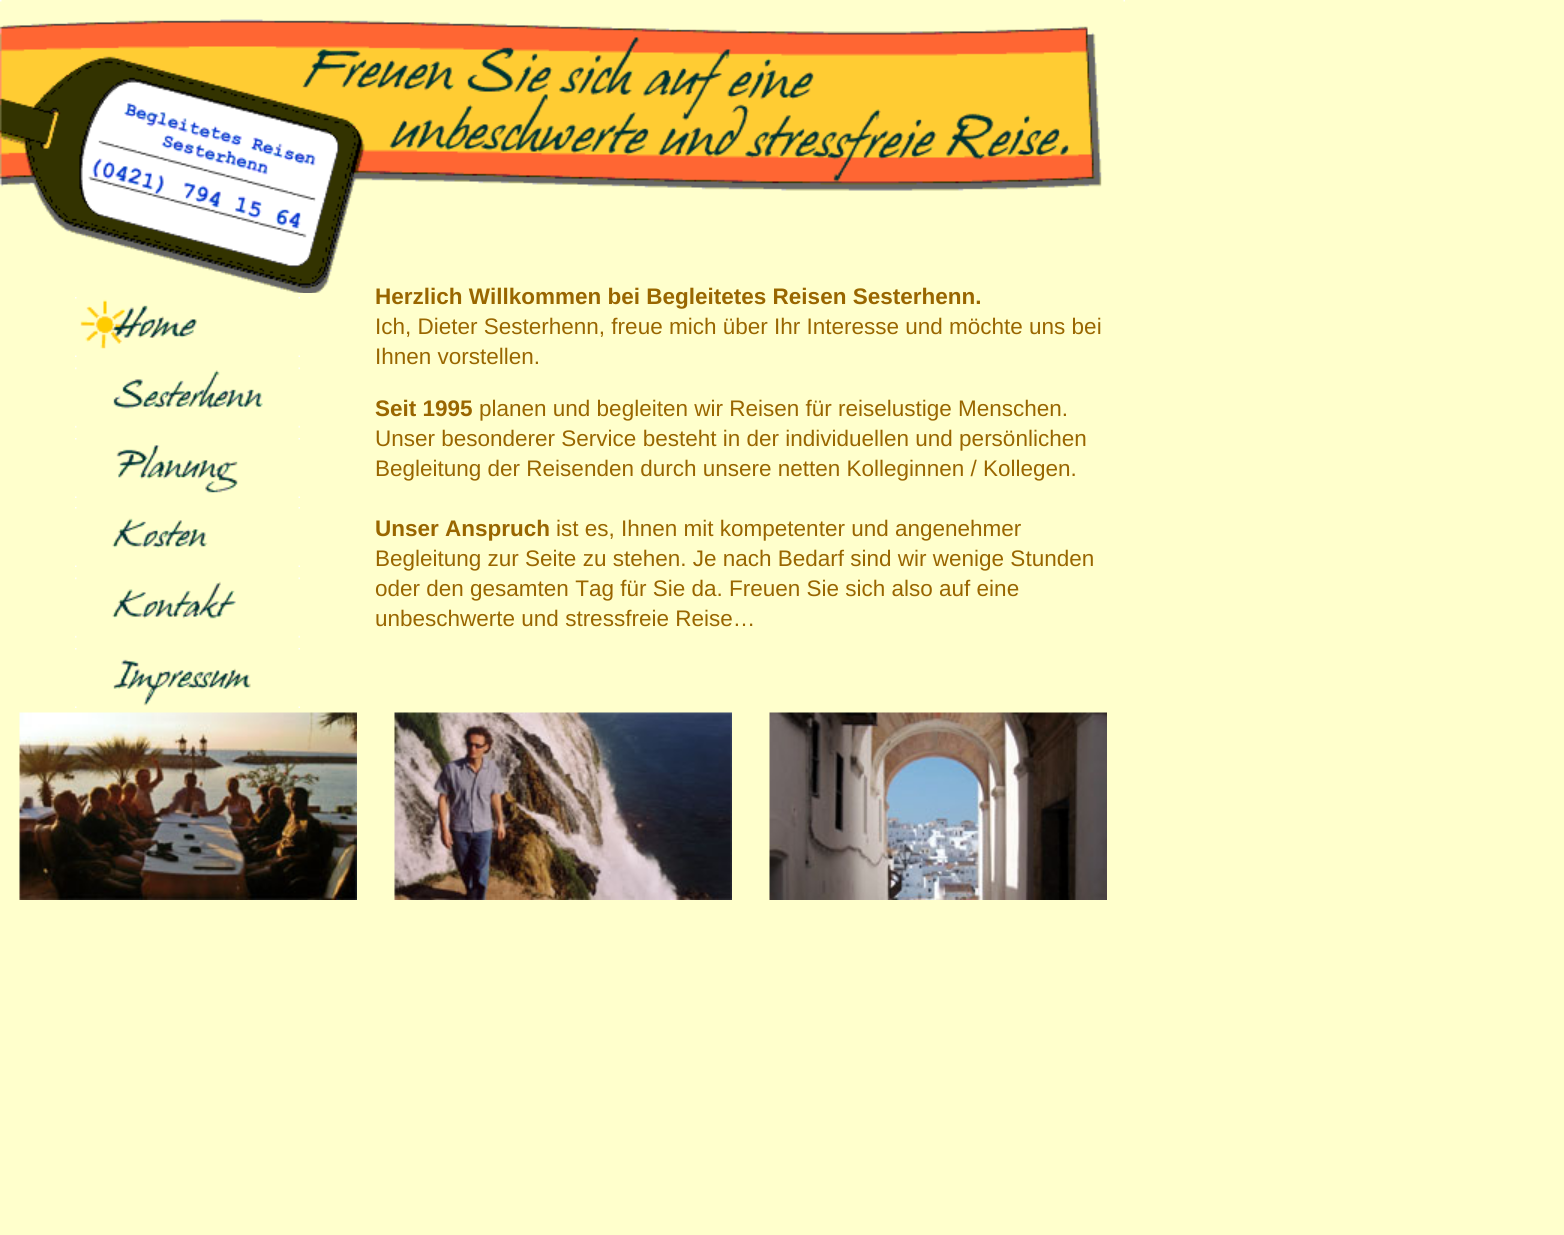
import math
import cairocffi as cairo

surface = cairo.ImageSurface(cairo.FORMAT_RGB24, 1564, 1235)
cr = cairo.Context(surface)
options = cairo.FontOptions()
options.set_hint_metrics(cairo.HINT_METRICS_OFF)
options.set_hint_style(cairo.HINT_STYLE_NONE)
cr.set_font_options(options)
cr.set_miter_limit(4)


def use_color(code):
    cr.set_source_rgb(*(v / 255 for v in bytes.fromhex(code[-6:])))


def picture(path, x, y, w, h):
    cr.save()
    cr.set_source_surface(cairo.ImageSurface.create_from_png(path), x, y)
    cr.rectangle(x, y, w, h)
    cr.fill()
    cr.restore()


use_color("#ffffcc")
cr.paint()
picture("img1.png", 0, 0, 1125, 293)
picture("img2.png", 75, 297, 225, 60)
picture("img3.png", 75, 367, 225, 61)
picture("img4.png", 75, 438, 225, 60)
picture("img5.png", 75, 507, 225, 60)
picture("img6.png", 75, 577, 225, 61)
picture("img7.png", 75, 648, 225, 60)
cr.select_font_face("Liberation Sans", cairo.FONT_SLANT_NORMAL, cairo.FONT_WEIGHT_BOLD)
cr.set_font_size(22.5)
use_color("#996600")
cr.move_to(375, 304)
cr.show_text("Herzlich Willkommen bei Begleitetes Reisen Sesterhenn.")
cr.select_font_face("Liberation Sans")
cr.move_to(375, 334)
cr.show_text("Ich, Dieter Sesterhenn, freue mich über Ihr Interesse und möchte uns bei")
cr.move_to(375, 364)
cr.show_text("Ihnen vorstellen.")
cr.select_font_face("Liberation Sans", cairo.FONT_SLANT_NORMAL, cairo.FONT_WEIGHT_BOLD)
cr.move_to(375, 416)
cr.show_text("Seit 1995")
cr.select_font_face("Liberation Sans")
cr.move_to(479, 416)
cr.show_text("planen und begleiten wir Reisen für reiselustige Menschen.")
cr.move_to(375, 446)
cr.show_text("Unser besonderer Service besteht in der individuellen und persönlichen")
cr.move_to(375, 476)
cr.show_text("Begleitung der Reisenden durch unsere netten Kolleginnen / Kollegen.")
cr.select_font_face("Liberation Sans", cairo.FONT_SLANT_NORMAL, cairo.FONT_WEIGHT_BOLD)
cr.move_to(375, 536)
cr.show_text("Unser Anspruch")
cr.select_font_face("Liberation Sans")
cr.move_to(556, 536)
cr.show_text("ist es, Ihnen mit kompetenter und angenehmer")
cr.move_to(375, 566)
cr.show_text("Begleitung zur Seite zu stehen. Je nach Bedarf sind wir wenige Stunden")
cr.move_to(375, 596)
cr.show_text("oder den gesamten Tag für Sie da. Freuen Sie sich also auf eine")
cr.move_to(375, 626)
cr.show_text("unbeschwerte und stressfreie Reise…")
picture("img8.png", 19, 712, 338, 188)
picture("img9.png", 394, 712, 338, 188)
picture("img10.png", 769, 712, 338, 188)
surface.write_to_png("result.png")
